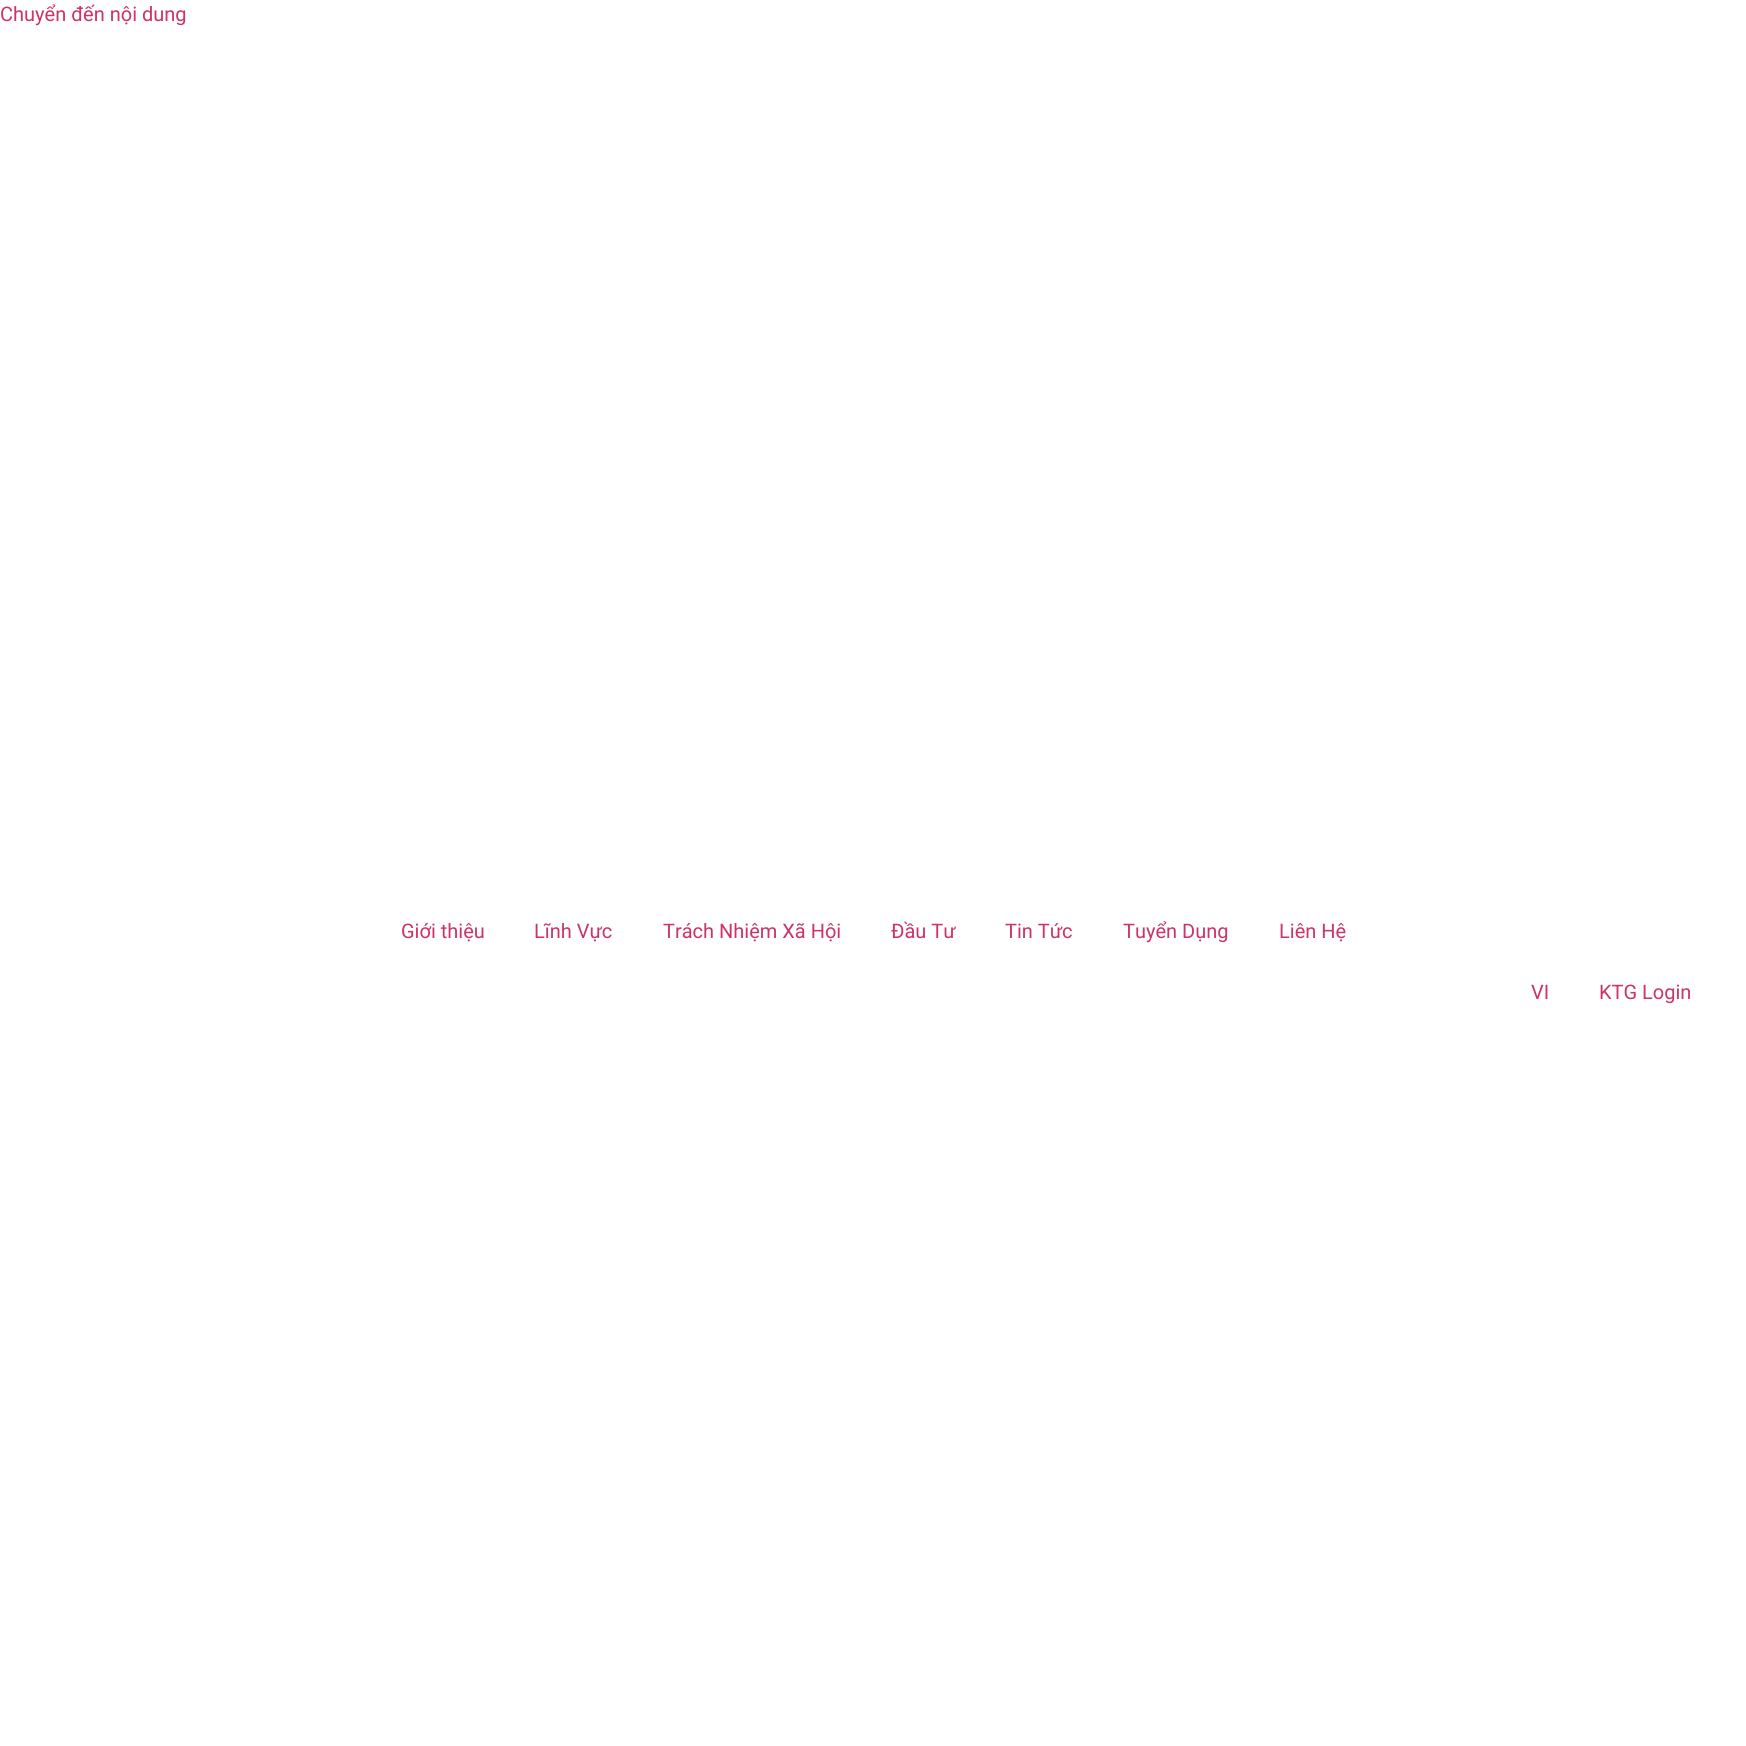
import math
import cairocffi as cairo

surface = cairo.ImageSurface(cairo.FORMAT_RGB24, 1746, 1746)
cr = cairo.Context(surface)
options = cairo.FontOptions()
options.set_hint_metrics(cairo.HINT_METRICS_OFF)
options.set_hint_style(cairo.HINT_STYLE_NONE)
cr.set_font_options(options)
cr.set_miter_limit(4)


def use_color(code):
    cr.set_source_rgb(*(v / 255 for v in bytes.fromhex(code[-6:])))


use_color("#ffffff")
cr.paint()
cr.select_font_face("Roboto")
cr.set_font_size(20)
use_color("#cc3366")
cr.move_to(0, 21)
cr.show_text("Chuyển đến nội dung")
cr.move_to(401, 938)
cr.show_text("Giới thiệu")
cr.move_to(534, 938)
cr.show_text("Lĩnh Vực")
cr.move_to(663, 938)
cr.show_text("Trách Nhiệm Xã Hội")
cr.move_to(891, 938)
cr.show_text("Đầu Tư")
cr.move_to(1005, 938)
cr.show_text("Tin Tức")
cr.move_to(1123, 938)
cr.show_text("Tuyển Dụng")
cr.move_to(1279, 938)
cr.show_text("Liên Hệ")
cr.move_to(1531, 999)
cr.show_text("VI")
cr.move_to(1599, 999)
cr.show_text("KTG Login")
surface.write_to_png("result.png")
